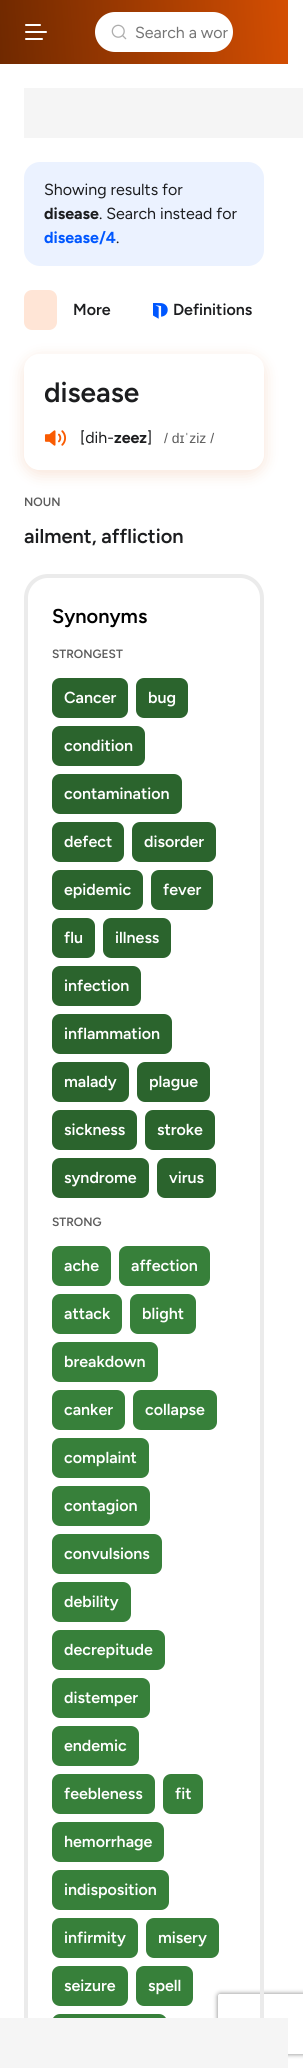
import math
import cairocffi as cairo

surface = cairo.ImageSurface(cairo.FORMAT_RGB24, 303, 2068)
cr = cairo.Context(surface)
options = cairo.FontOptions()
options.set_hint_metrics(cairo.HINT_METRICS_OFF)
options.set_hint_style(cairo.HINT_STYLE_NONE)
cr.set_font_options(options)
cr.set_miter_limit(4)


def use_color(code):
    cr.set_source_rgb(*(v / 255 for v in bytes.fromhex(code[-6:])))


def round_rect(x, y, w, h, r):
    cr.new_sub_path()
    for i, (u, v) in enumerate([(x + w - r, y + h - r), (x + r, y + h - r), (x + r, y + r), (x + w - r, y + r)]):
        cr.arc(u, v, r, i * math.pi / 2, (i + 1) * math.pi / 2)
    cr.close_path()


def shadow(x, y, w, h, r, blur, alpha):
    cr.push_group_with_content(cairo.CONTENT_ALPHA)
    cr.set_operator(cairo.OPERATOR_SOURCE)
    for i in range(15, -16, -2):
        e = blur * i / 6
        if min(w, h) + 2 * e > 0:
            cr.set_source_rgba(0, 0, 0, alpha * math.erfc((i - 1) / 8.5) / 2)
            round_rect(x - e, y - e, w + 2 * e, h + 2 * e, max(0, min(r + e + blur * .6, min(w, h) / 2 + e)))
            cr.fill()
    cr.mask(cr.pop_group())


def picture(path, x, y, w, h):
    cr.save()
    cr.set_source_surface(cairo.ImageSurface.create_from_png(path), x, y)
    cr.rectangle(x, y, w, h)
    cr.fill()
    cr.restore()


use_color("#ffffff")
cr.paint()
gradient = cairo.LinearGradient(-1.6, 43, 290, 21)
gradient.add_color_stop_rgba(0, 0.439, 0.161, 0, 1)
gradient.add_color_stop_rgba(1, 0.831, 0.306, 0.008, 1)
cr.set_source(gradient)
cr.rectangle(0, 0, 288, 64)
cr.fill()
cr.new_path()
cr.move_to(26, 25)
cr.line_to(40, 25)
cr.move_to(26, 32)
cr.line_to(46, 32)
cr.move_to(26, 39)
cr.line_to(42, 39)
use_color("#ffffff")
cr.set_line_cap(cairo.LINE_CAP_ROUND)
cr.stroke()
round_rect(95, 12, 138, 40, 20)
cr.fill()
picture("img1.png", 111, 24, 16, 16)
cr.select_font_face("Figtree")
cr.set_font_size(16)
use_color("#757575")
cr.move_to(135, 38)
cr.show_text("Search a wor")
use_color("#f5f5f5")
cr.rectangle(24, 88, 279, 50)
cr.fill()
use_color("#ebf2ff")
round_rect(24, 162, 240, 104, 16)
cr.fill()
use_color("#1c1d1f")
cr.move_to(44, 195)
cr.show_text("Showing results for")
cr.select_font_face("Figtree", cairo.FONT_SLANT_NORMAL, cairo.FONT_WEIGHT_BOLD)
cr.move_to(44, 219)
cr.show_text("disease")
cr.select_font_face("Figtree")
cr.move_to(99, 219)
cr.show_text(". Search instead for")
cr.select_font_face("Figtree", cairo.FONT_SLANT_NORMAL, cairo.FONT_WEIGHT_BOLD)
use_color("#0057ff")
cr.move_to(44, 243)
cr.show_text("disease/4")
cr.select_font_face("Figtree")
use_color("#1c1d1f")
cr.move_to(116, 243)
cr.show_text(".")
use_color("#ffe5d6")
round_rect(24, 290, 33, 40, 8)
cr.fill()
cr.select_font_face("Figtree SemiBold")
use_color("#1c1d1f")
cr.move_to(73, 315)
cr.show_text("More")
picture("img2.png", 153, 303, 15, 16)
cr.move_to(173, 315)
cr.show_text("Definitions")
cr.save()
cr.set_fill_rule(cairo.FILL_RULE_EVEN_ODD)
cr.new_path()
cr.move_to(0, 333)
cr.line_to(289, 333)
cr.line_to(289, 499)
cr.line_to(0, 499)
cr.close_path()
cr.move_to(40, 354)
cr.line_to(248, 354)
cr.curve_to(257, 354, 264, 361, 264, 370)
cr.line_to(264, 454)
cr.curve_to(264, 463, 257, 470, 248, 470)
cr.line_to(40, 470)
cr.curve_to(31, 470, 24, 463, 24, 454)
cr.line_to(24, 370)
cr.curve_to(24, 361, 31, 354, 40, 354)
cr.close_path()
cr.clip()
use_color("#d44e02")
shadow(24, 358, 240, 116, 16, 8, 0.16)
cr.restore()
cr.set_font_size(28)
cr.move_to(44, 402)
cr.show_text("disease")
picture("img3.png", 44, 430, 22, 16)
cr.select_font_face("Figtree")
cr.set_font_size(16)
cr.move_to(80, 443)
cr.show_text("[dih-")
cr.select_font_face("Figtree", cairo.FONT_SLANT_NORMAL, cairo.FONT_WEIGHT_BOLD)
cr.move_to(114, 443)
cr.show_text("zeez")
cr.select_font_face("Figtree")
cr.move_to(147, 443)
cr.show_text("]")
cr.select_font_face("Liberation Sans")
cr.set_font_size(14)
use_color("#5c5c5c")
cr.move_to(164, 443)
cr.show_text("/ dɪˈziz /")
cr.select_font_face("Figtree SemiBold")
cr.set_font_size(12)
cr.move_to(24, 506)
cr.show_text("NOUN")
cr.set_font_size(20)
use_color("#1c1d1f")
cr.move_to(24, 543)
cr.show_text("ailment, affliction")
cr.save()
cr.set_fill_rule(cairo.FILL_RULE_EVEN_ODD)
cr.new_path()
cr.move_to(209, 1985)
cr.line_to(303, 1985)
cr.line_to(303, 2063)
cr.line_to(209, 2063)
cr.close_path()
cr.move_to(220, 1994)
cr.line_to(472, 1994)
cr.curve_to(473, 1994, 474, 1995, 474, 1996)
cr.line_to(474, 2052)
cr.curve_to(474, 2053, 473, 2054, 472, 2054)
cr.line_to(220, 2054)
cr.curve_to(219, 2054, 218, 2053, 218, 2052)
cr.line_to(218, 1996)
cr.curve_to(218, 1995, 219, 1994, 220, 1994)
cr.close_path()
cr.clip()
use_color("#808080")
shadow(218, 1994, 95, 60, 2, 2.5, 1)
cr.restore()
round_rect(26, 576, 236, 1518, 22)
use_color("#ebebeb")
cr.set_line_width(4)
cr.set_line_cap(cairo.LINE_CAP_BUTT)
cr.stroke()
use_color("#000000")
cr.move_to(52, 623)
cr.show_text("Synonyms")
cr.set_font_size(12)
use_color("#5c5c5c")
cr.move_to(52, 658)
cr.show_text("STRONGEST")
use_color("#2b642d")
round_rect(52, 678, 76, 40, 8)
cr.fill()
cr.set_font_size(16)
use_color("#ffffff")
cr.move_to(64, 703)
cr.show_text("Cancer")
use_color("#2b642d")
round_rect(136, 678, 52, 40, 8)
cr.fill()
use_color("#ffffff")
cr.move_to(148, 703)
cr.show_text("bug")
use_color("#2b642d")
round_rect(52, 726, 93, 40, 8)
cr.fill()
use_color("#ffffff")
cr.move_to(64, 751)
cr.show_text("condition")
use_color("#2b642d")
round_rect(52, 774, 130, 40, 8)
cr.fill()
use_color("#ffffff")
cr.move_to(64, 799)
cr.show_text("contamination")
use_color("#2b642d")
round_rect(52, 822, 72, 40, 8)
cr.fill()
use_color("#ffffff")
cr.move_to(64, 847)
cr.show_text("defect")
use_color("#2b642d")
round_rect(132, 822, 84, 40, 8)
cr.fill()
use_color("#ffffff")
cr.move_to(144, 847)
cr.show_text("disorder")
use_color("#2b642d")
round_rect(52, 870, 91, 40, 8)
cr.fill()
use_color("#ffffff")
cr.move_to(64, 895)
cr.show_text("epidemic")
use_color("#2b642d")
round_rect(151, 870, 62, 40, 8)
cr.fill()
use_color("#ffffff")
cr.move_to(163, 895)
cr.show_text("fever")
use_color("#2b642d")
round_rect(52, 918, 43, 40, 8)
cr.fill()
use_color("#ffffff")
cr.move_to(64, 943)
cr.show_text("flu")
use_color("#2b642d")
round_rect(103, 918, 68, 40, 8)
cr.fill()
use_color("#ffffff")
cr.move_to(115, 943)
cr.show_text("illness")
use_color("#2b642d")
round_rect(52, 966, 89, 40, 8)
cr.fill()
use_color("#ffffff")
cr.move_to(64, 991)
cr.show_text("infection")
use_color("#2b642d")
round_rect(52, 1014, 120, 40, 8)
cr.fill()
use_color("#ffffff")
cr.move_to(64, 1039)
cr.show_text("inflammation")
use_color("#2b642d")
round_rect(52, 1062, 77, 40, 8)
cr.fill()
use_color("#ffffff")
cr.move_to(64, 1087)
cr.show_text("malady")
use_color("#2b642d")
round_rect(137, 1062, 73, 40, 8)
cr.fill()
use_color("#ffffff")
cr.move_to(149, 1087)
cr.show_text("plague")
use_color("#2b642d")
round_rect(52, 1110, 85, 40, 8)
cr.fill()
use_color("#ffffff")
cr.move_to(64, 1135)
cr.show_text("sickness")
use_color("#2b642d")
round_rect(145, 1110, 70, 40, 8)
cr.fill()
use_color("#ffffff")
cr.move_to(157, 1135)
cr.show_text("stroke")
use_color("#2b642d")
round_rect(52, 1158, 97, 40, 8)
cr.fill()
use_color("#ffffff")
cr.move_to(64, 1183)
cr.show_text("syndrome")
use_color("#2b642d")
round_rect(157, 1158, 59, 40, 8)
cr.fill()
use_color("#ffffff")
cr.move_to(169, 1183)
cr.show_text("virus")
cr.set_font_size(12)
use_color("#5c5c5c")
cr.move_to(52, 1226)
cr.show_text("STRONG")
use_color("#37803a")
round_rect(52, 1246, 59, 40, 8)
cr.fill()
cr.set_font_size(16)
use_color("#ffffff")
cr.move_to(64, 1271)
cr.show_text("ache")
use_color("#37803a")
round_rect(119, 1246, 91, 40, 8)
cr.fill()
use_color("#ffffff")
cr.move_to(131, 1271)
cr.show_text("affection")
use_color("#37803a")
round_rect(52, 1294, 70, 40, 8)
cr.fill()
use_color("#ffffff")
cr.move_to(64, 1319)
cr.show_text("attack")
use_color("#37803a")
round_rect(130, 1294, 66, 40, 8)
cr.fill()
use_color("#ffffff")
cr.move_to(142, 1319)
cr.show_text("blight")
use_color("#37803a")
round_rect(52, 1342, 106, 40, 8)
cr.fill()
use_color("#ffffff")
cr.move_to(64, 1367)
cr.show_text("breakdown")
use_color("#37803a")
round_rect(52, 1390, 73, 40, 8)
cr.fill()
use_color("#ffffff")
cr.move_to(64, 1415)
cr.show_text("canker")
use_color("#37803a")
round_rect(133, 1390, 84, 40, 8)
cr.fill()
use_color("#ffffff")
cr.move_to(145, 1415)
cr.show_text("collapse")
use_color("#37803a")
round_rect(52, 1438, 97, 40, 8)
cr.fill()
use_color("#ffffff")
cr.move_to(64, 1463)
cr.show_text("complaint")
use_color("#37803a")
round_rect(52, 1486, 98, 40, 8)
cr.fill()
use_color("#ffffff")
cr.move_to(64, 1511)
cr.show_text("contagion")
use_color("#37803a")
round_rect(52, 1534, 110, 40, 8)
cr.fill()
use_color("#ffffff")
cr.move_to(64, 1559)
cr.show_text("convulsions")
use_color("#37803a")
round_rect(52, 1582, 79, 40, 8)
cr.fill()
use_color("#ffffff")
cr.move_to(64, 1607)
cr.show_text("debility")
use_color("#37803a")
round_rect(52, 1630, 113, 40, 8)
cr.fill()
use_color("#ffffff")
cr.move_to(64, 1655)
cr.show_text("decrepitude")
use_color("#37803a")
round_rect(52, 1678, 98, 40, 8)
cr.fill()
use_color("#ffffff")
cr.move_to(64, 1703)
cr.show_text("distemper")
use_color("#37803a")
round_rect(52, 1726, 87, 40, 8)
cr.fill()
use_color("#ffffff")
cr.move_to(64, 1751)
cr.show_text("endemic")
use_color("#37803a")
round_rect(52, 1774, 103, 40, 8)
cr.fill()
use_color("#ffffff")
cr.move_to(64, 1799)
cr.show_text("feebleness")
use_color("#37803a")
round_rect(163, 1774, 40, 40, 8)
cr.fill()
use_color("#ffffff")
cr.move_to(175, 1799)
cr.show_text("fit")
use_color("#37803a")
round_rect(52, 1822, 112, 40, 8)
cr.fill()
use_color("#ffffff")
cr.move_to(64, 1847)
cr.show_text("hemorrhage")
use_color("#37803a")
round_rect(52, 1870, 117, 40, 8)
cr.fill()
use_color("#ffffff")
cr.move_to(64, 1895)
cr.show_text("indisposition")
use_color("#37803a")
round_rect(52, 1918, 86, 40, 8)
cr.fill()
use_color("#ffffff")
cr.move_to(64, 1943)
cr.show_text("infirmity")
use_color("#37803a")
round_rect(146, 1918, 73, 40, 8)
cr.fill()
use_color("#ffffff")
cr.move_to(158, 1943)
cr.show_text("misery")
use_color("#37803a")
round_rect(52, 1966, 76, 40, 8)
cr.fill()
use_color("#ffffff")
cr.move_to(64, 1991)
cr.show_text("seizure")
use_color("#37803a")
round_rect(136, 1966, 57, 40, 8)
cr.fill()
use_color("#ffffff")
cr.move_to(148, 1991)
cr.show_text("spell")
use_color("#37803a")
round_rect(52, 2014, 115, 40, 8)
cr.fill()
use_color("#f5f5f5")
cr.rectangle(0, 2018, 288, 50)
cr.fill()
surface.write_to_png("result.png")
